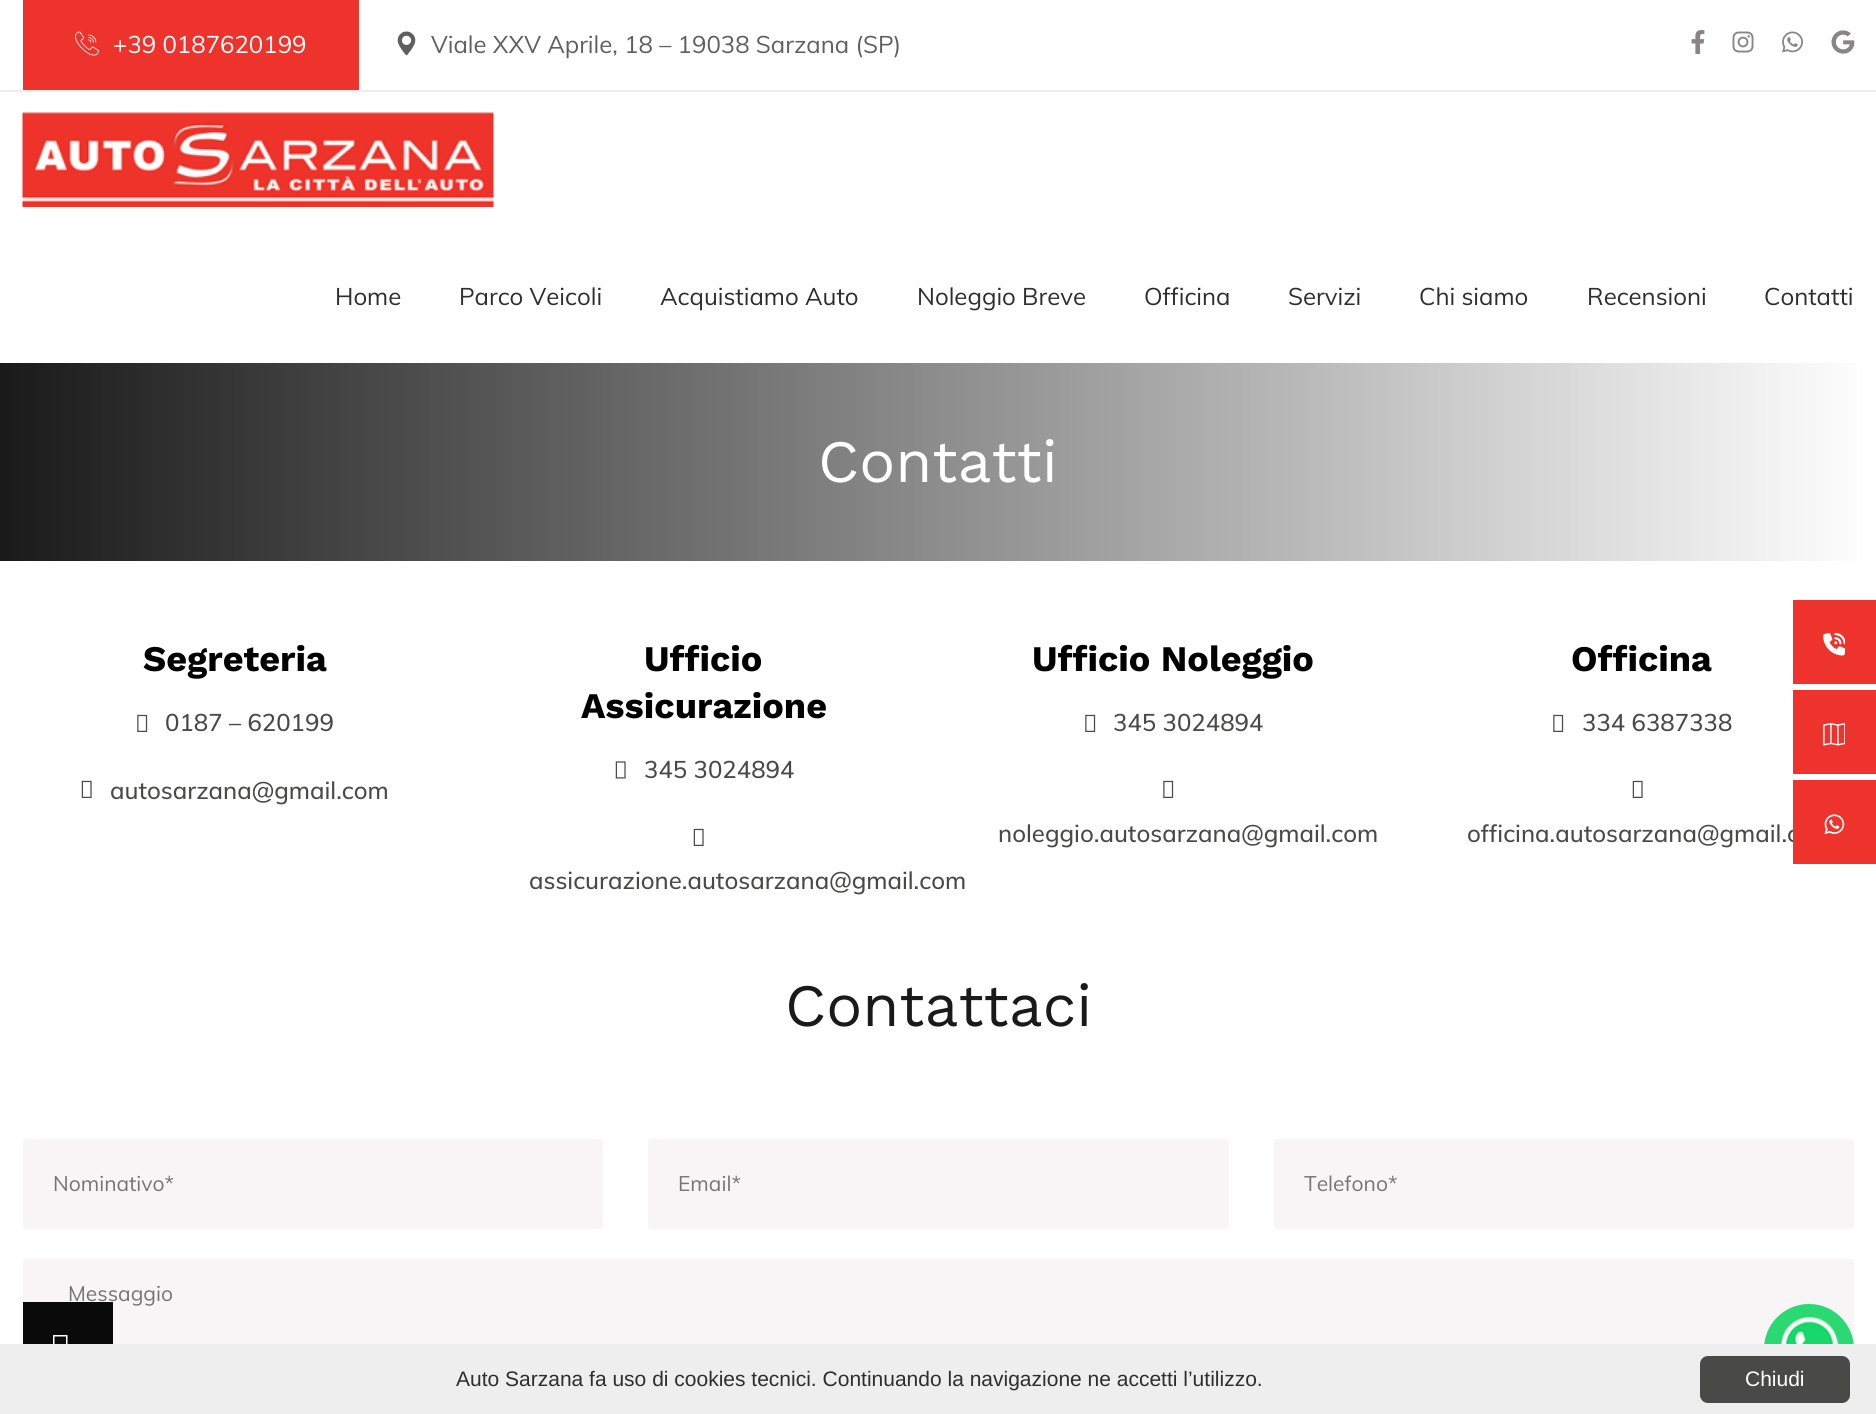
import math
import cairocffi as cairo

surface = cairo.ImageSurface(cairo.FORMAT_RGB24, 1876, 1414)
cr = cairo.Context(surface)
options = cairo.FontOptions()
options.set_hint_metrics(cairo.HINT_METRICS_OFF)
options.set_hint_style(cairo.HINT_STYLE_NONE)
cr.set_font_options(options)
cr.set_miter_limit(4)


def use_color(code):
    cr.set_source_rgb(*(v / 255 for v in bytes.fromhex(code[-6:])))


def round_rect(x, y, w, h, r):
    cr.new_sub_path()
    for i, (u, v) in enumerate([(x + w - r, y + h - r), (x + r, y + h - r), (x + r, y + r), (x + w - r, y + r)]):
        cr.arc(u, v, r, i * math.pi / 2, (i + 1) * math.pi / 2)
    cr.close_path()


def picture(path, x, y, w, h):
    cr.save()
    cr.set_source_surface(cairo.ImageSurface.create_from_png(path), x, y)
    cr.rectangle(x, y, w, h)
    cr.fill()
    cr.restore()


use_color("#ffffff")
cr.paint()
use_color("#eeeeee")
cr.rectangle(0, 90, 1876, 2)
cr.fill()
use_color("#ee332c")
cr.rectangle(23, 0, 336, 90)
cr.fill()
picture("img1.png", 75, 31, 24, 25)
cr.select_font_face("Muli")
cr.set_font_size(24)
use_color("#ffffff")
cr.move_to(113, 53)
cr.show_text("+39 0187620199")
picture("img2.png", 397, 31, 19, 25)
use_color("#5f5f5f")
cr.move_to(431, 53)
cr.show_text("Viale XXV Aprile, 18 – 19038 Sarzana (SP)")
picture("img3.png", 1691, 30, 14, 24)
picture("img4.png", 1732, 31, 22, 22)
picture("img5.png", 1782, 31, 21, 22)
picture("img6.png", 1831, 30, 24, 24)
picture("img7.png", 22, 112, 472, 95)
use_color("#2e2e2e")
cr.move_to(335, 305)
cr.show_text("Home")
cr.move_to(459, 305)
cr.show_text("Parco Veicoli")
cr.move_to(660, 305)
cr.show_text("Acquistiamo Auto")
cr.move_to(917, 305)
cr.show_text("Noleggio Breve")
cr.move_to(1144, 305)
cr.show_text("Officina")
cr.move_to(1288, 305)
cr.show_text("Servizi")
cr.move_to(1419, 305)
cr.show_text("Chi siamo")
cr.move_to(1587, 305)
cr.show_text("Recensioni")
cr.move_to(1764, 305)
cr.show_text("Contatti")
gradient = cairo.LinearGradient(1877, 462, 0, 462)
gradient.add_color_stop_rgba(0, 1, 1, 1, 1)
gradient.add_color_stop_rgba(1, 0.102, 0.102, 0.102, 1)
cr.set_source(gradient)
cr.rectangle(0, 363, 1857, 198)
cr.fill()
cr.select_font_face("Work Sans")
cr.set_font_size(60)
use_color("#ffffff")
cr.move_to(818, 482)
cr.show_text("Contatti")
cr.select_font_face("Work Sans", cairo.FONT_SLANT_NORMAL, cairo.FONT_WEIGHT_BOLD)
cr.set_font_size(36)
use_color("#000000")
cr.move_to(143, 671)
cr.show_text("Segreteria")
picture("img8.png", 137, 714, 11, 18)
cr.select_font_face("Muli Medium")
cr.set_font_size(24)
use_color("#494948")
cr.move_to(165, 731)
cr.show_text("0187 – 620199")
picture("img9.png", 81, 780, 11, 18)
cr.move_to(110, 799)
cr.show_text("autosarzana@gmail.com")
cr.select_font_face("Work Sans", cairo.FONT_SLANT_NORMAL, cairo.FONT_WEIGHT_BOLD)
cr.set_font_size(36)
use_color("#000000")
cr.move_to(644, 671)
cr.show_text("Ufficio")
cr.move_to(581, 718)
cr.show_text("Assicurazione")
picture("img10.png", 615, 761, 11, 18)
cr.select_font_face("Muli Medium")
cr.set_font_size(24)
use_color("#494948")
cr.move_to(644, 778)
cr.show_text("345 3024894")
picture("img9.png", 693, 828, 11, 18)
cr.move_to(529, 889)
cr.show_text("assicurazione.autosarzana@gmail.com")
cr.select_font_face("Work Sans", cairo.FONT_SLANT_NORMAL, cairo.FONT_WEIGHT_BOLD)
cr.set_font_size(36)
use_color("#000000")
cr.move_to(1032, 671)
cr.show_text("Ufficio Noleggio")
picture("img8.png", 1085, 714, 11, 18)
cr.select_font_face("Muli Medium")
cr.set_font_size(24)
use_color("#494948")
cr.move_to(1113, 731)
cr.show_text("345 3024894")
picture("img8.png", 1163, 780, 11, 18)
cr.move_to(998, 842)
cr.show_text("noleggio.autosarzana@gmail.com")
cr.select_font_face("Work Sans", cairo.FONT_SLANT_NORMAL, cairo.FONT_WEIGHT_BOLD)
cr.set_font_size(36)
use_color("#000000")
cr.move_to(1571, 671)
cr.show_text("Officina")
picture("img8.png", 1553, 714, 11, 18)
cr.select_font_face("Muli Medium")
cr.set_font_size(24)
use_color("#494948")
cr.move_to(1582, 731)
cr.show_text("334 6387338")
picture("img9.png", 1632, 780, 11, 18)
cr.move_to(1467, 842)
cr.show_text("officina.autosarzana@gmail.c")
cr.select_font_face("Work Sans")
cr.set_font_size(60)
use_color("#1a1a1a")
cr.move_to(785, 1026)
cr.show_text("Contattaci")
use_color("#f7f5f5")
round_rect(23, 1139, 580, 90, 3)
cr.fill()
cr.select_font_face("Muli")
cr.set_font_size(21)
use_color("#757575")
cr.move_to(53, 1191)
cr.show_text("Nominativo*")
use_color("#f7f5f5")
round_rect(648, 1139, 581, 90, 3)
cr.fill()
use_color("#757575")
cr.move_to(678, 1191)
cr.show_text("Email*")
use_color("#f7f5f5")
round_rect(1274, 1139, 580, 90, 3)
cr.fill()
use_color("#757575")
cr.move_to(1304, 1191)
cr.show_text("Telefono*")
use_color("#f7f5f5")
round_rect(23, 1259, 1831, 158, 3)
cr.fill()
use_color("#757575")
cr.move_to(68, 1301)
cr.show_text("Messaggio")
use_color("#ee332c")
cr.rectangle(1793, 600, 83, 84)
cr.fill()
picture("img11.png", 1823, 633, 22, 23)
cr.rectangle(1793, 690, 83, 84)
cr.fill()
picture("img12.png", 1823, 723, 22, 23)
cr.rectangle(1793, 780, 83, 84)
cr.fill()
picture("img13.png", 1824, 814, 21, 20)
use_color("#0a0a0a")
cr.rectangle(23, 1302, 90, 42)
cr.fill()
use_color("#ffffff")
cr.new_path()
cr.move_to(53, 1360.5)
cr.line_to(53, 1335)
cr.line_to(67.5, 1335)
cr.line_to(67.5, 1360.5)
cr.close_path()
cr.move_to(54.5, 1358.5)
cr.line_to(66, 1358.5)
cr.line_to(66, 1336.5)
cr.line_to(54.5, 1336.5)
cr.close_path()
cr.fill()
use_color("#2ad971")
cr.arc(1809, 1349, 45, 0, 2 * math.pi)
cr.fill()
use_color("#eeeeee")
cr.rectangle(0, 1344, 1876, 70)
cr.fill()
cr.select_font_face("Liberation Sans")
use_color("#2e2e2e")
cr.move_to(456, 1386)
cr.show_text("Auto Sarzana fa uso di cookies tecnici. Continuando la navigazione ne accetti l’utilizzo.")
use_color("#494948")
round_rect(1700, 1356, 150, 47, 8)
cr.fill()
use_color("#ffffff")
cr.move_to(1745, 1386)
cr.show_text("Chiudi")
picture("img14.png", 1780, 1317, 59, 27)
surface.write_to_png("result.png")
